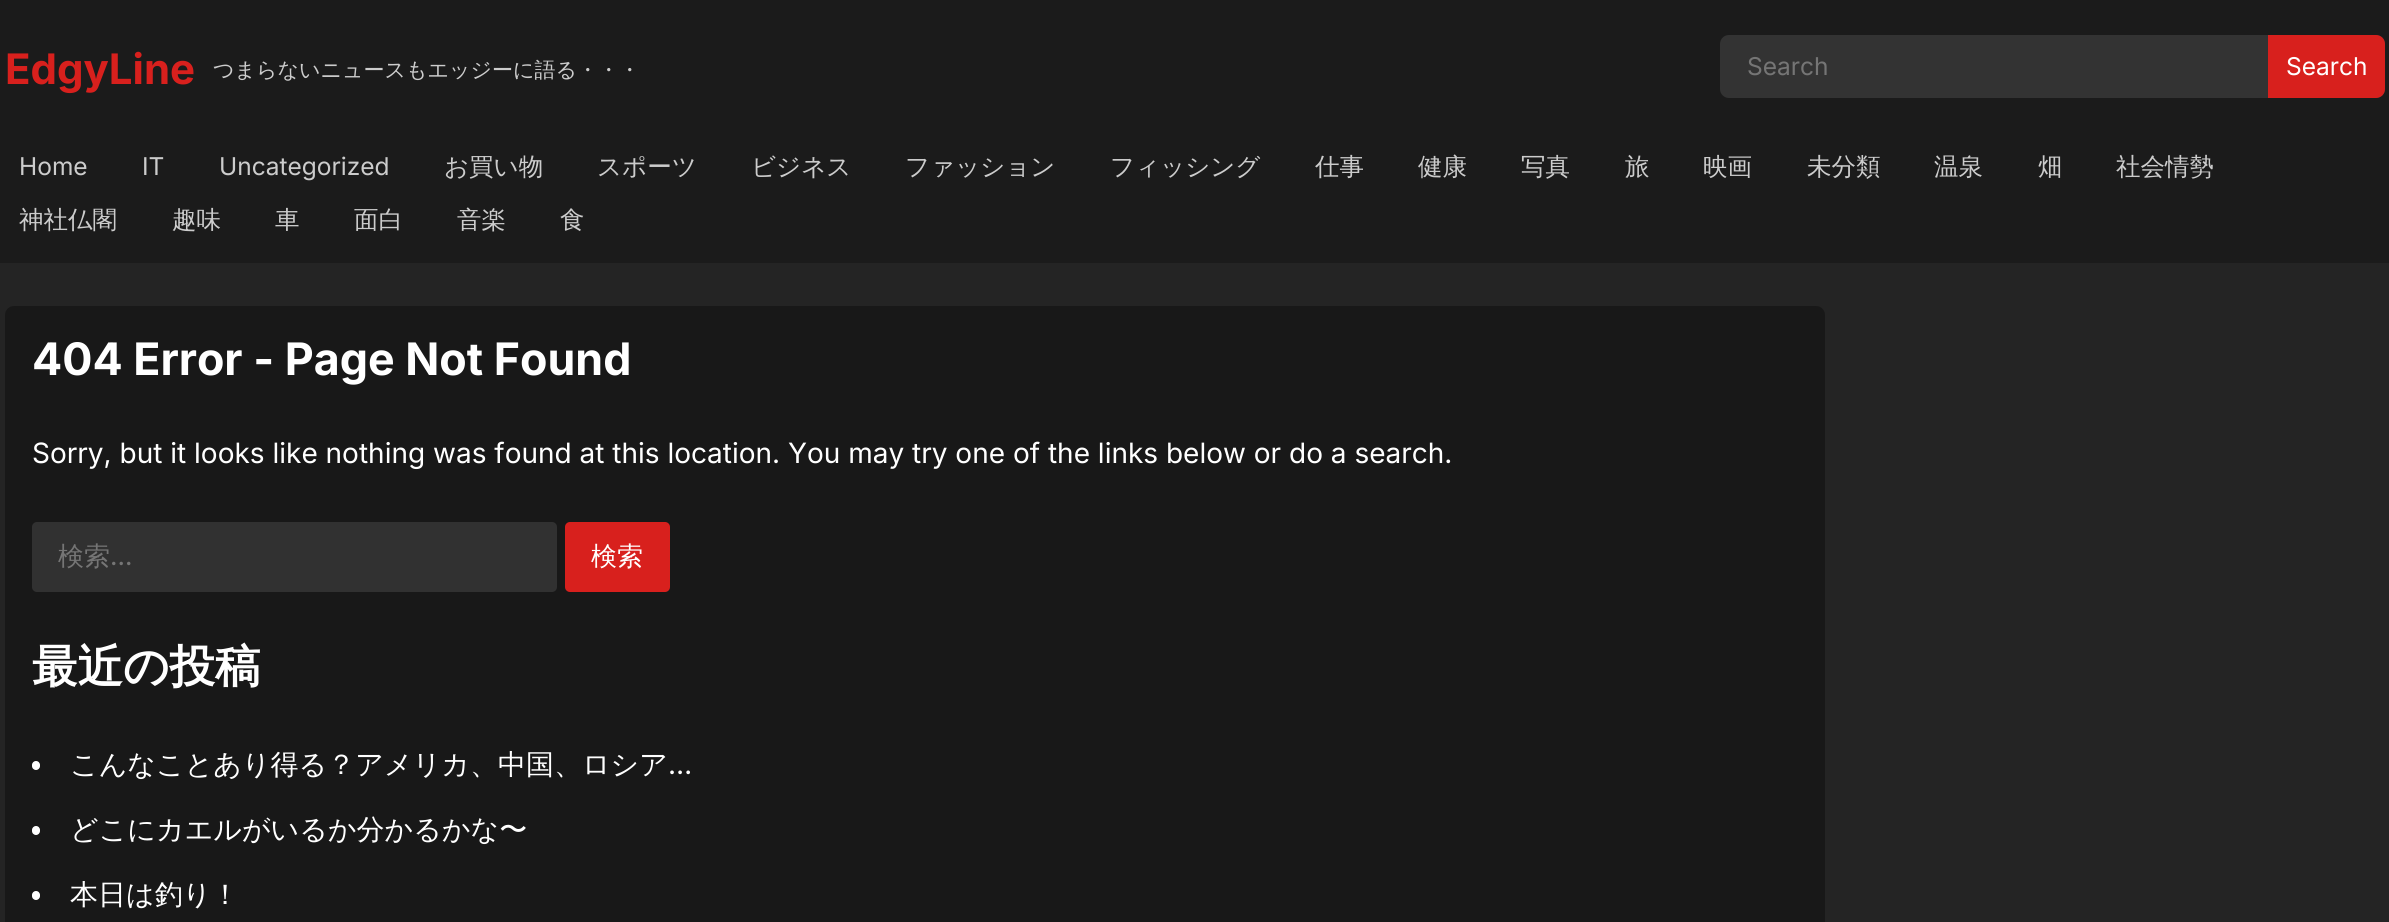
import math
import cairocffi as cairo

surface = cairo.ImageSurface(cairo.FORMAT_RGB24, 2389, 922)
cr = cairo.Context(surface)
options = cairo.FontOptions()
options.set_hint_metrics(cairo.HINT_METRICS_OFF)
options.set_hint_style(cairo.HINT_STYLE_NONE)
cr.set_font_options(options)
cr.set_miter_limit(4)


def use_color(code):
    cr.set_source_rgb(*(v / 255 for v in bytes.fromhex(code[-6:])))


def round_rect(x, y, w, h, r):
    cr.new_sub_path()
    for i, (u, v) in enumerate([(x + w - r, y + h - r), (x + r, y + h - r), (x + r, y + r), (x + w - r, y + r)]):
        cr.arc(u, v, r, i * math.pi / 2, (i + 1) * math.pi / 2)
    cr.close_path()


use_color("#242424")
cr.paint()
use_color("#1b1b1b")
cr.rectangle(0, 0, 2389, 263)
cr.fill()
cr.select_font_face("Inter", cairo.FONT_SLANT_NORMAL, cairo.FONT_WEIGHT_BOLD)
cr.set_font_size(42)
use_color("#d8201d")
cr.move_to(5, 84)
cr.show_text("EdgyLine")
cr.select_font_face("WenQuanYi Zen Hei Medium")
cr.set_font_size(21)
use_color("#cccccc")
cr.move_to(213, 77)
cr.show_text("つまらないニュースもエッジーに語る・・・")
use_color("#333333")
round_rect(1720, 35, 665, 63, 9)
cr.fill()
cr.select_font_face("Inter")
cr.set_font_size(24.5)
use_color("#757575")
cr.move_to(1747, 75)
cr.show_text("Search")
use_color("#d8201d")
cr.new_path()
cr.move_to(2268, 35)
cr.line_to(2376, 35)
cr.curve_to(2381, 35, 2385, 39, 2385, 44)
cr.line_to(2385, 89)
cr.curve_to(2385, 94, 2381, 98, 2376, 98)
cr.line_to(2268, 98)
cr.close_path()
cr.fill()
use_color("#ffffff")
cr.move_to(2286, 75)
cr.show_text("Search")
use_color("#cccccc")
cr.move_to(19, 175)
cr.show_text("Home")
cr.move_to(142, 175)
cr.show_text("IT")
cr.move_to(219, 175)
cr.show_text("Uncategorized")
cr.select_font_face("WenQuanYi Zen Hei Medium")
cr.move_to(444, 175)
cr.show_text("お買い物")
cr.move_to(597, 175)
cr.show_text("スポーツ")
cr.move_to(751, 175)
cr.show_text("ビジネス")
cr.move_to(905, 175)
cr.show_text("ファッション")
cr.move_to(1110, 175)
cr.show_text("フィッシング")
cr.move_to(1315, 175)
cr.show_text("仕事")
cr.move_to(1418, 175)
cr.show_text("健康")
cr.move_to(1521, 175)
cr.show_text("写真")
cr.move_to(1625, 175)
cr.show_text("旅")
cr.move_to(1703, 175)
cr.show_text("映画")
cr.move_to(1807, 175)
cr.show_text("未分類")
cr.move_to(1934, 175)
cr.show_text("温泉")
cr.move_to(2038, 175)
cr.show_text("畑")
cr.move_to(2116, 175)
cr.show_text("社会情勢")
cr.move_to(19, 228)
cr.show_text("神社仏閣")
cr.move_to(172, 228)
cr.show_text("趣味")
cr.move_to(275, 228)
cr.show_text("車")
cr.move_to(354, 228)
cr.show_text("面白")
cr.move_to(457, 228)
cr.show_text("音楽")
cr.move_to(560, 228)
cr.show_text("食")
use_color("#181818")
round_rect(5, 306, 1820, 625, 9)
cr.fill()
cr.select_font_face("Inter", cairo.FONT_SLANT_NORMAL, cairo.FONT_WEIGHT_BOLD)
cr.set_font_size(44.75)
use_color("#ffffff")
cr.move_to(32, 375)
cr.show_text("404 Error - Page Not Found")
cr.select_font_face("Inter")
cr.set_font_size(28)
cr.move_to(32, 463)
cr.show_text("Sorry, but it looks like nothing was found at this location. You may try one of the links below or do a search.")
use_color("#313131")
round_rect(32, 522, 525, 70, 5)
cr.fill()
cr.select_font_face("WenQuanYi Zen Hei Medium")
cr.set_font_size(26)
use_color("#757575")
cr.move_to(58, 565)
cr.show_text("検索")
cr.select_font_face("Inter")
cr.move_to(110, 565)
cr.show_text("…")
use_color("#d8201d")
round_rect(565, 522, 105, 70, 5)
cr.fill()
cr.select_font_face("WenQuanYi Zen Hei Medium")
use_color("#ffffff")
cr.move_to(591, 565)
cr.show_text("検索")
cr.select_font_face("WenQuanYi Zen Hei", cairo.FONT_SLANT_NORMAL, cairo.FONT_WEIGHT_BOLD)
cr.set_font_size(45.5)
cr.move_to(32, 682)
cr.show_text("最近の投稿")
round_rect(32, 761, 8, 9, 4)
cr.fill()
cr.select_font_face("WenQuanYi Zen Hei Medium")
cr.set_font_size(28)
cr.move_to(70, 774)
cr.show_text("こんなことあり得る？アメリカ、中国、ロシア")
cr.select_font_face("Inter")
cr.move_to(668, 774)
cr.show_text("…")
round_rect(32, 826, 8, 9, 4)
cr.fill()
cr.select_font_face("WenQuanYi Zen Hei Medium")
cr.move_to(70, 839)
cr.show_text("どこにカエルがいるか分かるかな〜")
round_rect(32, 891, 8, 9, 4)
cr.fill()
cr.move_to(70, 904)
cr.show_text("本日は釣り！")
surface.write_to_png("result.png")
